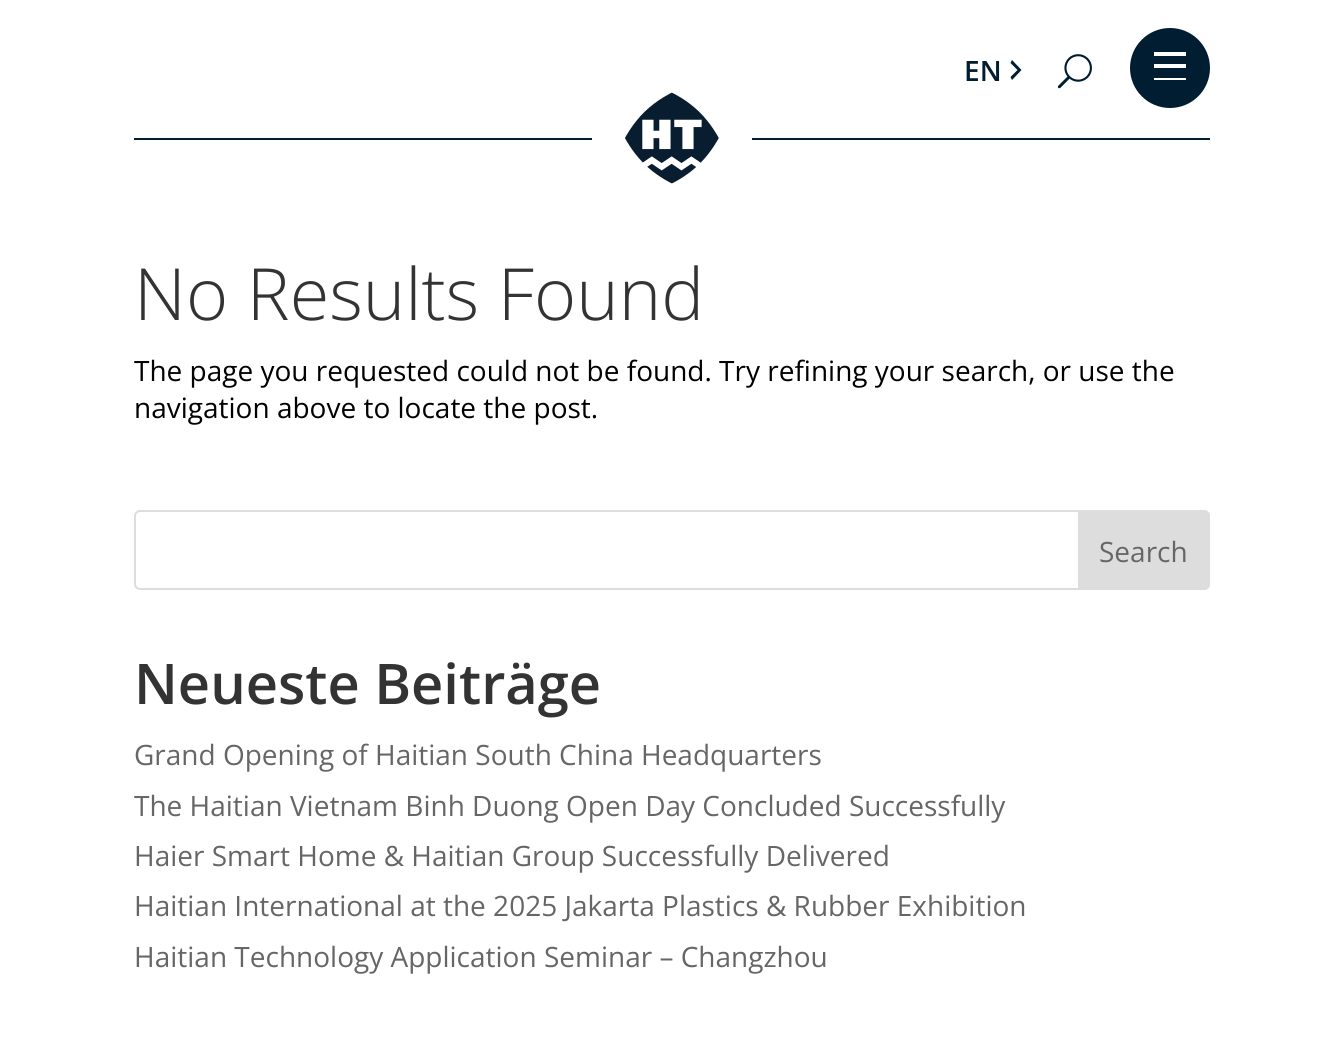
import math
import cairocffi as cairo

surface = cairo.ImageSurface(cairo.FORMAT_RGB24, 1344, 1044)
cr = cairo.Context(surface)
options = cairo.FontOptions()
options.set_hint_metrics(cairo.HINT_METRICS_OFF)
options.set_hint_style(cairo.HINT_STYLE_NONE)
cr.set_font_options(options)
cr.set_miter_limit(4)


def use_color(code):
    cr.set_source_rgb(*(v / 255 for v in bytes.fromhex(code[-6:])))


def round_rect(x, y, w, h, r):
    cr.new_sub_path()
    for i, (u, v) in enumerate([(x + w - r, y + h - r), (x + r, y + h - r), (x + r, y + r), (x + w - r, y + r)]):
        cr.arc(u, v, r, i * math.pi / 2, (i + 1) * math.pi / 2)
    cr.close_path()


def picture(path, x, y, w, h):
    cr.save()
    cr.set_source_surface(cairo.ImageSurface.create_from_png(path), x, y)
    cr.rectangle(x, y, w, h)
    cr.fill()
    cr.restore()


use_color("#ffffff")
cr.paint()
cr.select_font_face("Open Sans SemiBold")
cr.set_font_size(28)
use_color("#001d31")
cr.move_to(964, 81)
cr.show_text("EN")
cr.new_path()
cr.move_to(1010.5, 77)
cr.line_to(1017.5, 70)
cr.line_to(1010.5, 63)
cr.line_to(1012, 60)
cr.line_to(1021.5, 70)
cr.line_to(1012, 80)
cr.close_path()
cr.fill()
picture("img1.png", 1057, 54, 35, 35)
cr.arc(1170, 68, 40, 0, 2 * math.pi)
cr.fill()
use_color("#ffffff")
cr.rectangle(1154, 52, 32, 4)
cr.fill()
cr.rectangle(1154, 64, 32, 4)
cr.fill()
cr.rectangle(1154, 78, 32, 2)
cr.fill()
picture("img2.png", 625, 92, 94, 92)
use_color("#001d31")
cr.rectangle(134, 138, 458, 2)
cr.fill()
cr.rectangle(752, 138, 458, 2)
cr.fill()
cr.select_font_face("Open Sans Light")
cr.set_font_size(72)
use_color("#333333")
cr.move_to(134, 320)
cr.show_text("No Results Found")
cr.select_font_face("Open Sans")
cr.set_font_size(28)
use_color("#000000")
cr.move_to(134, 381)
cr.show_text("The page you requested could not be found. Try refining your search, or use the")
cr.move_to(134, 418)
cr.show_text("navigation above to locate the post.")
round_rect(135, 511, 1074, 78, 5)
use_color("#dddddd")
cr.stroke()
cr.new_path()
cr.move_to(1079, 511)
cr.line_to(1204, 511)
cr.curve_to(1207, 511, 1209, 513, 1209, 516)
cr.line_to(1209, 584)
cr.curve_to(1209, 587, 1207, 589, 1204, 589)
cr.line_to(1079, 589)
cr.close_path()
cr.fill_preserve()
cr.stroke()
use_color("#666666")
cr.move_to(1099, 562)
cr.show_text("Search")
cr.select_font_face("Open Sans SemiBold")
cr.set_font_size(56)
use_color("#333333")
cr.move_to(134, 704)
cr.show_text("Neueste Beiträge")
cr.select_font_face("Open Sans")
cr.set_font_size(28)
use_color("#666666")
cr.move_to(134, 765)
cr.show_text("Grand Opening of Haitian South China Headquarters")
cr.move_to(134, 816)
cr.show_text("The Haitian Vietnam Binh Duong Open Day Concluded Successfully")
cr.move_to(134, 866)
cr.show_text("Haier Smart Home & Haitian Group Successfully Delivered")
cr.move_to(134, 916)
cr.show_text("Haitian International at the 2025 Jakarta Plastics & Rubber Exhibition")
cr.move_to(134, 967)
cr.show_text("Haitian Technology Application Seminar – Changzhou")
surface.write_to_png("result.png")
